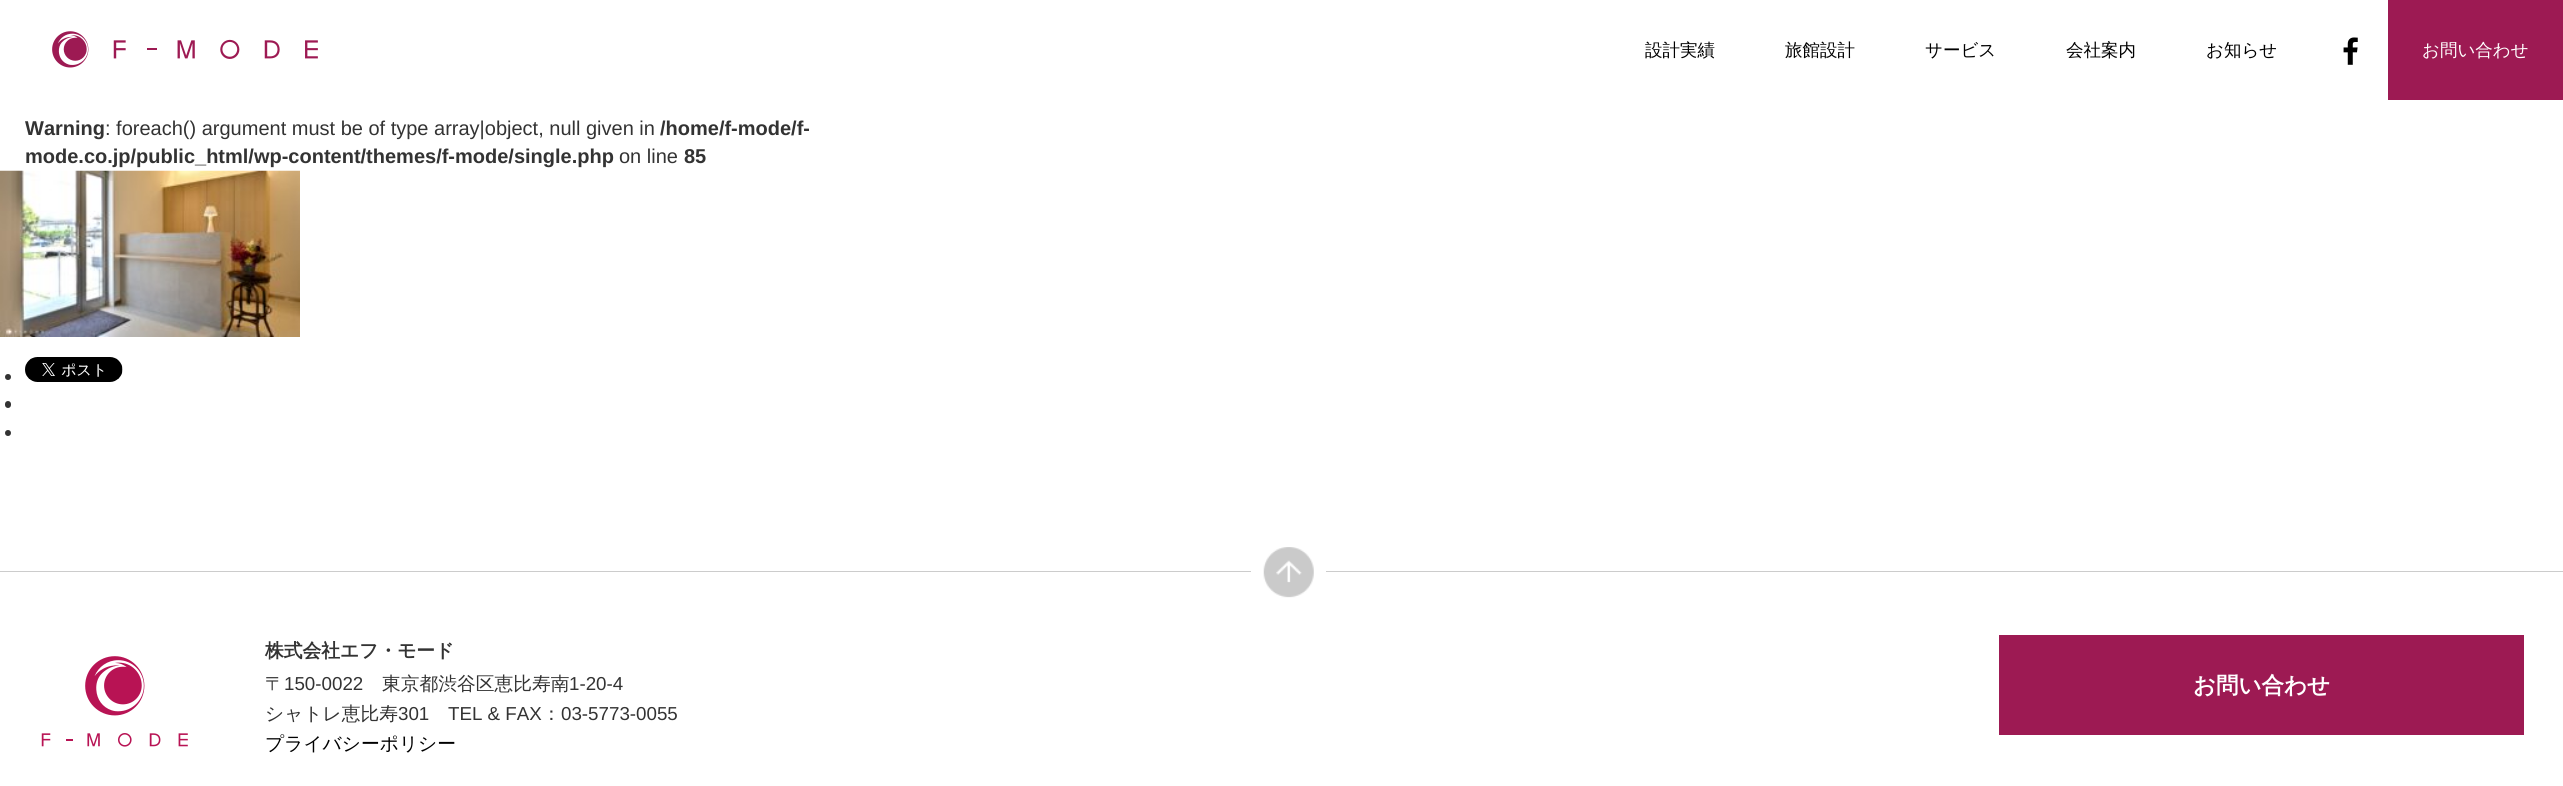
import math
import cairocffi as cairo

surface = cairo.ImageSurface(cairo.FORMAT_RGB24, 2563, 786)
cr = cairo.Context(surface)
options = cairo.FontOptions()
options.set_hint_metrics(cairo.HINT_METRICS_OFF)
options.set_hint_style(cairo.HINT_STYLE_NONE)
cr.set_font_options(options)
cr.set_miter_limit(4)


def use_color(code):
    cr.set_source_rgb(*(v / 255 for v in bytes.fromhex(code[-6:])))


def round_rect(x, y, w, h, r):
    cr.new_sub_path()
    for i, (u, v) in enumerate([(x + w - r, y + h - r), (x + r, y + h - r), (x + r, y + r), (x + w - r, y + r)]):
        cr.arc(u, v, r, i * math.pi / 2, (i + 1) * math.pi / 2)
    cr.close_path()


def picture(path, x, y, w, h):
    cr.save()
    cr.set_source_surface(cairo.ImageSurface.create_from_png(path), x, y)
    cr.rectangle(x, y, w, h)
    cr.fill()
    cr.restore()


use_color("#ffffff")
cr.paint()
picture("img1.png", 52, 31, 266, 37)
cr.select_font_face("WenQuanYi Zen Hei Medium")
cr.set_font_size(17.5)
use_color("#000000")
cr.move_to(1645, 56)
cr.show_text("設計実績")
cr.move_to(1785, 56)
cr.show_text("旅館設計")
cr.move_to(1925, 56)
cr.show_text("サービス")
cr.move_to(2066, 56)
cr.show_text("会社案内")
cr.move_to(2206, 56)
cr.show_text("お知らせ")
picture("img2.png", 2343, 37, 15, 28)
use_color("#9d1a53")
cr.rectangle(2388, 0, 175, 100)
cr.fill()
use_color("#ffffff")
cr.move_to(2422, 56)
cr.show_text("お問い合わせ")
cr.select_font_face("Liberation Sans", cairo.FONT_SLANT_NORMAL, cairo.FONT_WEIGHT_BOLD)
cr.set_font_size(20)
use_color("#333333")
cr.move_to(25, 135)
cr.show_text("Warning")
cr.select_font_face("Liberation Sans")
cr.move_to(105, 135)
cr.show_text(": foreach() argument must be of type array|object, null given in")
cr.select_font_face("Liberation Sans", cairo.FONT_SLANT_NORMAL, cairo.FONT_WEIGHT_BOLD)
cr.move_to(660, 135)
cr.show_text("/home/f-mode/f-")
cr.move_to(25, 163)
cr.show_text("mode.co.jp/public_html/wp-content/themes/f-mode/single.php")
cr.select_font_face("Liberation Sans")
cr.move_to(619, 163)
cr.show_text("on line")
cr.select_font_face("Liberation Sans", cairo.FONT_SLANT_NORMAL, cairo.FONT_WEIGHT_BOLD)
cr.move_to(684, 163)
cr.show_text("85")
picture("img3.png", 0, 170, 300, 167)
cr.arc(8, 377, 3, 0, 2 * math.pi)
cr.fill()
picture("img4.png", 25, 357, 98, 25)
round_rect(5, 401, 6, 7, 3)
cr.fill()
cr.arc(8, 433, 3, 0, 2 * math.pi)
cr.fill()
use_color("#cccccc")
cr.rectangle(0, 571, 2563, 1)
cr.fill()
use_color("#ffffff")
cr.rectangle(1251, 571, 75, 1)
cr.fill()
picture("img5.png", 1263, 547, 51, 51)
picture("img6.png", 41, 656, 147, 91)
cr.select_font_face("WenQuanYi Zen Hei", cairo.FONT_SLANT_NORMAL, cairo.FONT_WEIGHT_BOLD)
cr.set_font_size(18.75)
use_color("#333333")
cr.move_to(265, 657)
cr.show_text("株式会社エフ・モード")
cr.select_font_face("WenQuanYi Zen Hei Medium")
cr.move_to(265, 690)
cr.show_text("〒")
cr.select_font_face("Liberation Sans")
cr.move_to(284, 690)
cr.show_text("150-0022")
cr.select_font_face("WenQuanYi Zen Hei Medium")
cr.move_to(382, 690)
cr.show_text("東京都渋谷区恵比寿南")
cr.select_font_face("Liberation Sans")
cr.move_to(569, 690)
cr.show_text("1-20-4")
cr.select_font_face("WenQuanYi Zen Hei Medium")
cr.move_to(265, 720)
cr.show_text("シャトレ恵比寿")
cr.select_font_face("Liberation Sans")
cr.move_to(398, 720)
cr.show_text("301")
cr.move_to(448, 720)
cr.show_text("TEL & FAX")
cr.select_font_face("WenQuanYi Zen Hei Medium")
cr.move_to(542, 720)
cr.show_text("：")
cr.select_font_face("Liberation Sans")
cr.move_to(561, 720)
cr.show_text("03-5773-0055")
cr.select_font_face("WenQuanYi Zen Hei Medium")
use_color("#000000")
cr.move_to(265, 750)
cr.show_text("プライバシーポリシー")
use_color("#9d1a53")
cr.rectangle(1999, 635, 525, 100)
cr.fill()
cr.select_font_face("WenQuanYi Zen Hei", cairo.FONT_SLANT_NORMAL, cairo.FONT_WEIGHT_BOLD)
cr.set_font_size(22.5)
use_color("#ffffff")
cr.move_to(2193, 693)
cr.show_text("お問い合わせ")
surface.write_to_png("result.png")
